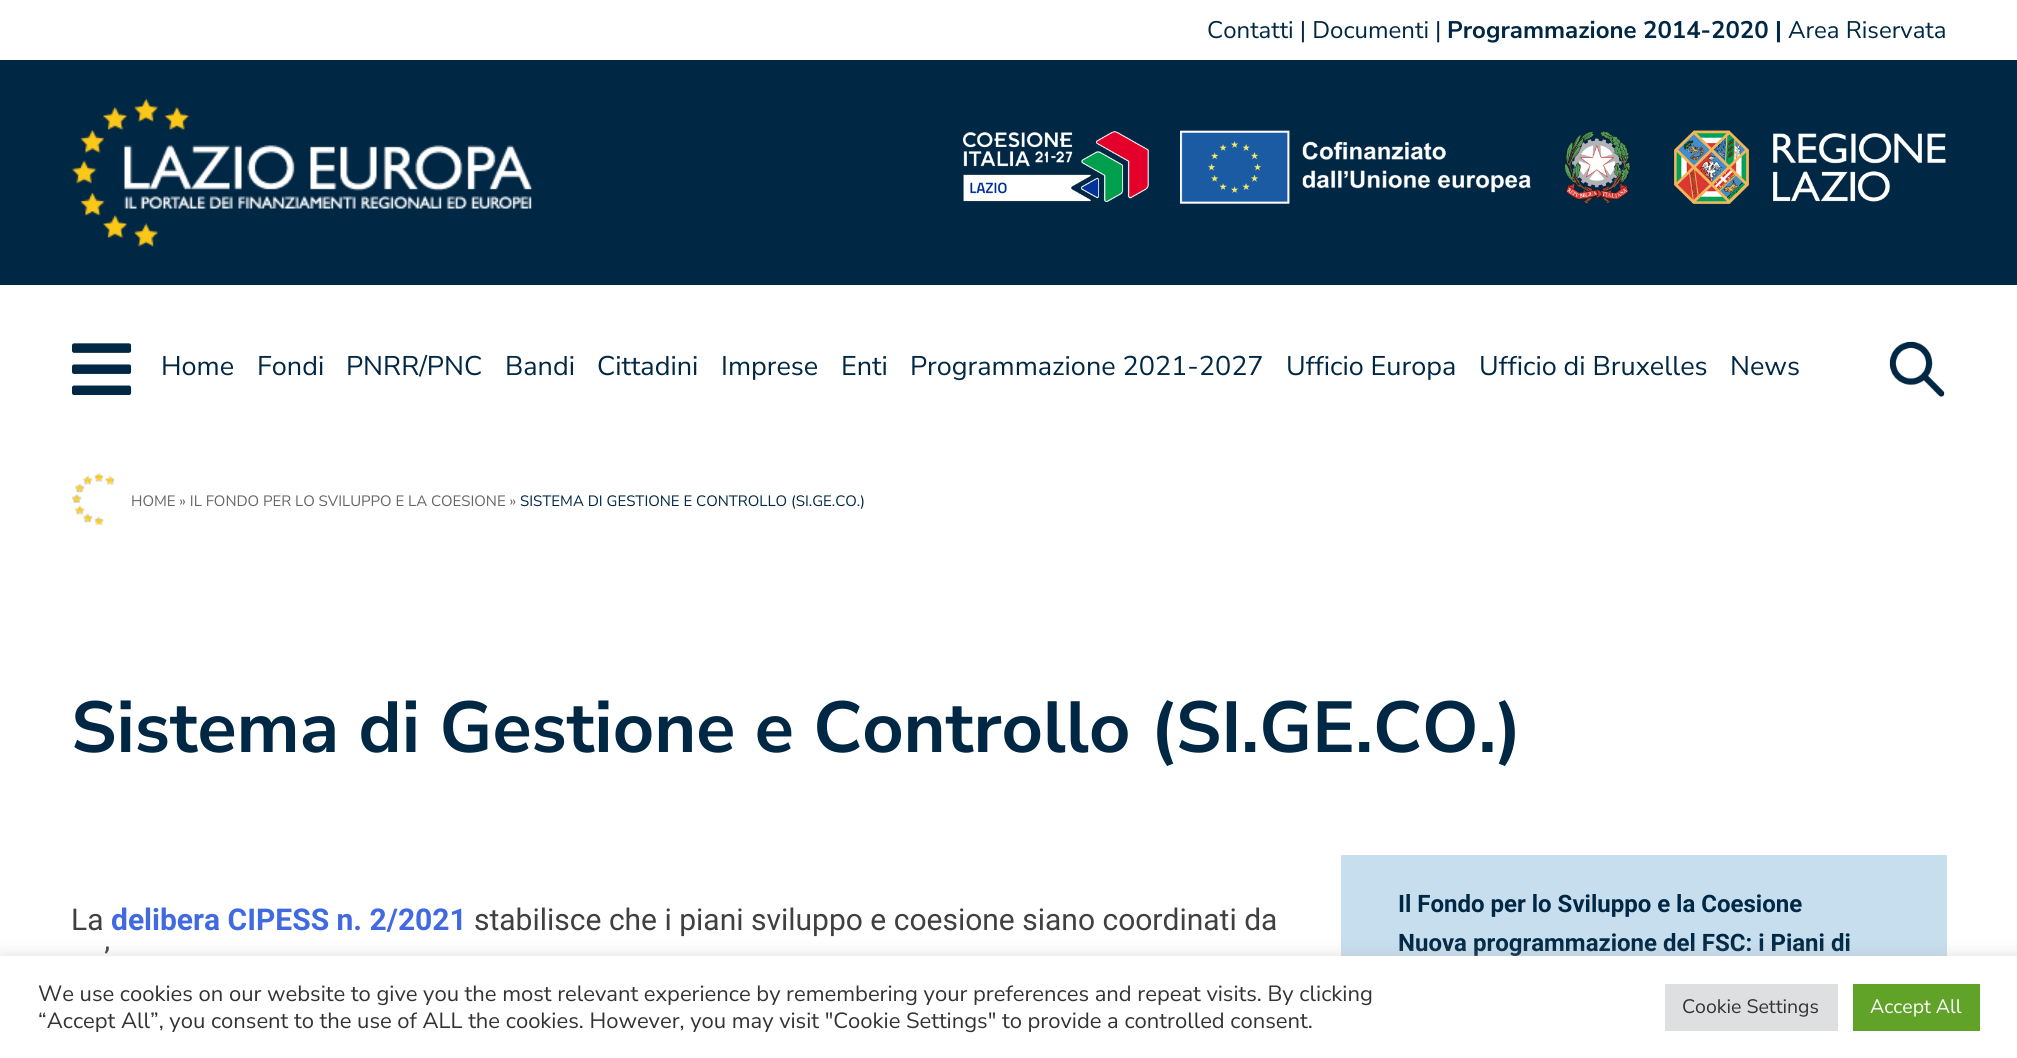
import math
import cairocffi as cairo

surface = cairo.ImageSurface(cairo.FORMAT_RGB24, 2017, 1058)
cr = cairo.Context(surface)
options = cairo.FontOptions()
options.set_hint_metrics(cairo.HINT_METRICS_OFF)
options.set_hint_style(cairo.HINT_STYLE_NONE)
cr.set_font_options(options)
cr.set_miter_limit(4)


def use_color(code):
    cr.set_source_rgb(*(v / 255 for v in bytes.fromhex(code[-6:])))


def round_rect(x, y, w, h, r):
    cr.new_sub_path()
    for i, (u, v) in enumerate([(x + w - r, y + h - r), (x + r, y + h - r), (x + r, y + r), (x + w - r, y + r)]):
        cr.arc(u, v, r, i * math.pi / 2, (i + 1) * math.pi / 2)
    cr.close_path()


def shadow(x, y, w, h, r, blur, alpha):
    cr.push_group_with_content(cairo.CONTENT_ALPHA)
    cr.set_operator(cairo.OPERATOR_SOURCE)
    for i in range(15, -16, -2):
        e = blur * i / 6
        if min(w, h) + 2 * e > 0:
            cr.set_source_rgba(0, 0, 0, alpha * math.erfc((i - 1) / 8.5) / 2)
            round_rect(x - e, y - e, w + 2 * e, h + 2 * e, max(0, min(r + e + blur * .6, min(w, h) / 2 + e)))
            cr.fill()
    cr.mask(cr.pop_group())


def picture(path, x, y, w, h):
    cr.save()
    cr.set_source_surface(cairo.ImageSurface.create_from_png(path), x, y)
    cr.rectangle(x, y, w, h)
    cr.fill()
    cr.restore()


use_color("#ffffff")
cr.paint()
cr.select_font_face("Nunito Sans")
cr.set_font_size(24)
use_color("#002744")
cr.move_to(1207, 38)
cr.show_text("Contatti | Documenti |")
cr.select_font_face("Nunito Sans", cairo.FONT_SLANT_NORMAL, cairo.FONT_WEIGHT_BOLD)
cr.move_to(1447, 38)
cr.show_text("Programmazione 2014-2020")
cr.move_to(1775, 38)
cr.show_text("|")
cr.select_font_face("Nunito Sans")
cr.move_to(1788, 38)
cr.show_text("Area Riservata")
cr.rectangle(0, 60, 2017, 225)
cr.fill()
picture("img1.png", 72, 98, 461, 149)
picture("img2.png", 963, 130, 983, 74)
picture("img3.png", 72, 343, 60, 52)
cr.set_font_size(27)
cr.move_to(161, 375)
cr.show_text("Home")
cr.move_to(257, 375)
cr.show_text("Fondi")
cr.move_to(346, 375)
cr.show_text("PNRR/PNC")
cr.move_to(505, 375)
cr.show_text("Bandi")
cr.move_to(597, 375)
cr.show_text("Cittadini")
cr.move_to(721, 375)
cr.show_text("Imprese")
cr.move_to(841, 375)
cr.show_text("Enti")
cr.move_to(910, 375)
cr.show_text("Programmazione 2021-2027")
cr.move_to(1286, 375)
cr.show_text("Ufficio Europa")
cr.move_to(1479, 375)
cr.show_text("Ufficio di Bruxelles")
cr.move_to(1730, 375)
cr.show_text("News")
picture("img4.png", 1889, 341, 56, 56)
picture("img5.png", 72, 472, 43, 53)
cr.set_font_size(15)
use_color("#666666")
cr.move_to(131, 506)
cr.show_text("HOME » IL FONDO PER LO SVILUPPO E LA COESIONE »")
use_color("#002744")
cr.move_to(520, 506)
cr.show_text("SISTEMA DI GESTIONE E CONTROLLO (SI.GE.CO.)")
cr.select_font_face("Nunito Sans", cairo.FONT_SLANT_NORMAL, cairo.FONT_WEIGHT_BOLD)
cr.set_font_size(72)
cr.move_to(71, 752)
cr.show_text("Sistema di Gestione e Controllo (SI.GE.CO.)")
cr.select_font_face("Roboto")
cr.set_font_size(30)
use_color("#404040")
cr.move_to(71, 930)
cr.show_text("La")
cr.select_font_face("Roboto", cairo.FONT_SLANT_NORMAL, cairo.FONT_WEIGHT_BOLD)
use_color("#4169e1")
cr.move_to(111, 930)
cr.show_text("delibera CIPESS n. 2/2021")
cr.select_font_face("Roboto")
use_color("#404040")
cr.move_to(474, 930)
cr.show_text("stabilisce che i piani sviluppo e coesione siano coordinati da")
cr.move_to(104, 969)
cr.show_text("’")
use_color("#c6deee")
cr.rectangle(1341, 855, 606, 101)
cr.fill()
cr.select_font_face("Roboto", cairo.FONT_SLANT_NORMAL, cairo.FONT_WEIGHT_BOLD)
cr.set_font_size(24)
use_color("#002744")
cr.move_to(1398, 912)
cr.show_text("Il Fondo per lo Sviluppo e la Coesione")
cr.move_to(1398, 951)
cr.show_text("Nuova programmazione del FSC: i Piani di")
use_color("#acabab")
shadow(0, 954, 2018, 104, 0, 7.5, 0.3)
use_color("#ffffff")
cr.rectangle(0, 956, 2017, 102)
cr.fill()
cr.select_font_face("Nunito Sans")
cr.set_font_size(22)
use_color("#333333")
cr.move_to(38, 1001)
cr.show_text("We use cookies on our website to give you the most relevant experience by remembering your preferences and repeat visits. By clicking")
cr.move_to(38, 1028)
cr.show_text("“Accept All”, you consent to the use of ALL the cookies. However, you may visit \"Cookie Settings\" to provide a controlled consent.")
use_color("#dedfe0")
cr.rectangle(1665, 984, 173, 47)
cr.fill()
cr.set_font_size(19.5)
use_color("#333333")
cr.move_to(1682, 1013)
cr.show_text("Cookie Settings")
use_color("#61a229")
cr.rectangle(1853, 984, 127, 47)
cr.fill()
use_color("#ffffff")
cr.move_to(1870, 1013)
cr.show_text("Accept All")
surface.write_to_png("result.png")
